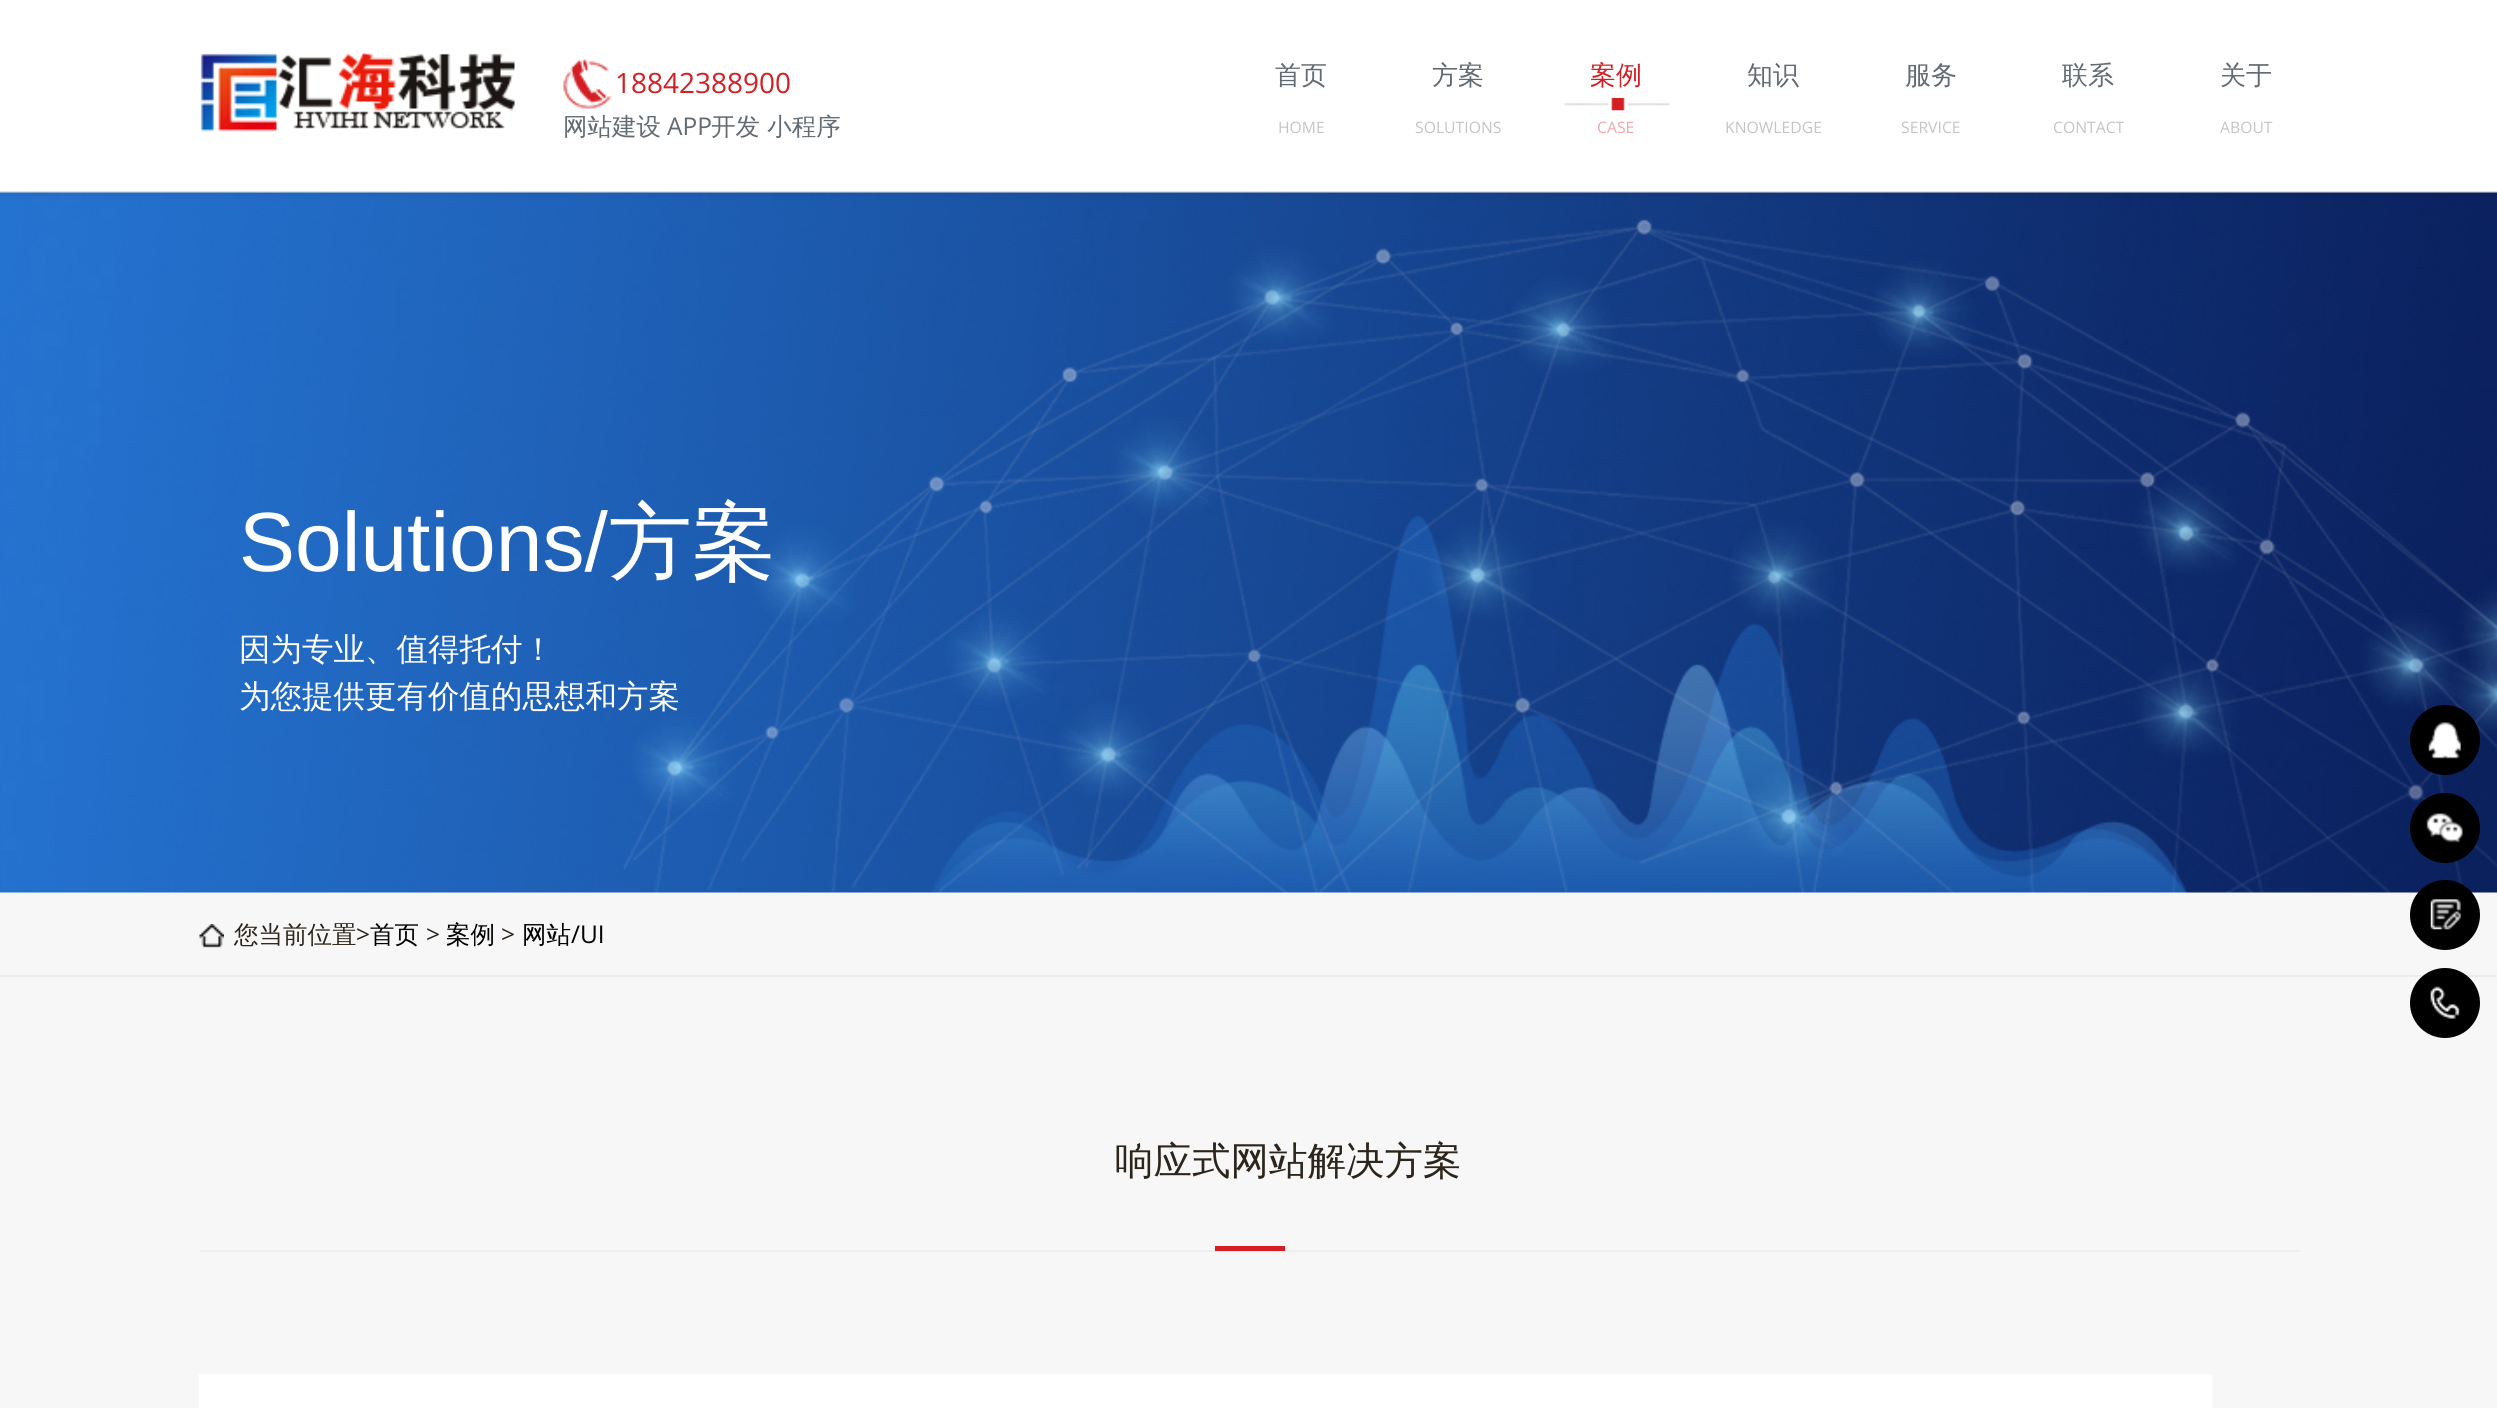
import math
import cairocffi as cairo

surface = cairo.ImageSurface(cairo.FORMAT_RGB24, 2497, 1408)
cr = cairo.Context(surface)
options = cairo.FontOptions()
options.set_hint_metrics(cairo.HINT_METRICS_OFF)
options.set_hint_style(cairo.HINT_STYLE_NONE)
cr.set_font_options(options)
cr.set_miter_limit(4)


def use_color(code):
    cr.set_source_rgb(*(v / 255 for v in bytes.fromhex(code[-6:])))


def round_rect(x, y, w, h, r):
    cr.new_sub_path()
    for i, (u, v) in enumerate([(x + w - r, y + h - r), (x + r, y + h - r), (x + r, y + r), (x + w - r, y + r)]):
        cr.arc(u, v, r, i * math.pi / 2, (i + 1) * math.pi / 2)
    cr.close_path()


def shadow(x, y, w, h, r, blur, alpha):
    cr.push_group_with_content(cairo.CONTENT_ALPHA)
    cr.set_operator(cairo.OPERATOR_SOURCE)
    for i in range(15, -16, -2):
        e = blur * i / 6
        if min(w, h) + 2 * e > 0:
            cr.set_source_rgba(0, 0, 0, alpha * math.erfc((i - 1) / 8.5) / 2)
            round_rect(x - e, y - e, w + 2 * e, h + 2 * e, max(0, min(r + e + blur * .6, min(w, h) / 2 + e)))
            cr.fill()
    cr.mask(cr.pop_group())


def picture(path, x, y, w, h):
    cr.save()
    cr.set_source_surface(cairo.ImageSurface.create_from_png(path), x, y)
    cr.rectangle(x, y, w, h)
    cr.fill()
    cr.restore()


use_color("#f7f7f7")
cr.paint()
picture("img4.png", 0, 192, 2497, 701)
use_color("#000000")
shadow(0, 0, 2497, 191, 0, 4.5, 0.2)
use_color("#ffffff")
cr.rectangle(0, 0, 2497, 191)
cr.fill()
picture("img1.png", 200, 53, 315, 79)
picture("img2.png", 563, 59, 48, 50)
cr.select_font_face("Open Sans")
cr.set_font_size(28)
use_color("#d31f23")
cr.move_to(615, 93)
cr.show_text("18842388900")
cr.select_font_face("WenQuanYi Zen Hei Medium")
cr.set_font_size(24.5)
use_color("#626b72")
cr.move_to(563, 135)
cr.show_text("网站建设")
cr.select_font_face("Open Sans")
cr.move_to(667, 135)
cr.show_text("APP")
cr.save()
cr.rectangle(182, 53, 2135, 85)
cr.clip()
cr.select_font_face("WenQuanYi Zen Hei Medium")
cr.move_to(711, 135)
cr.show_text("开发 小程序")
cr.restore()
cr.select_font_face("WenQuanYi Zen Hei Medium")
cr.set_font_size(26)
cr.move_to(1275, 84)
cr.show_text("首页")
cr.select_font_face("Open Sans")
cr.set_font_size(15.75)
use_color("#c2c5c8")
cr.move_to(1278, 133)
cr.show_text("HOME")
cr.select_font_face("WenQuanYi Zen Hei Medium")
cr.set_font_size(26)
use_color("#626b72")
cr.move_to(1432, 84)
cr.show_text("方案")
cr.select_font_face("Open Sans")
cr.set_font_size(15.75)
use_color("#c2c5c8")
cr.move_to(1415, 133)
cr.show_text("SOLUTIONS")
cr.select_font_face("WenQuanYi Zen Hei Medium")
cr.set_font_size(26)
use_color("#d31f23")
cr.move_to(1590, 84)
cr.show_text("案例")
picture("img3.png", 1564, 98, 106, 13)
cr.select_font_face("Open Sans")
cr.set_font_size(15.75)
use_color("#eea8a9")
cr.move_to(1597, 133)
cr.show_text("CASE")
cr.select_font_face("WenQuanYi Zen Hei Medium")
cr.set_font_size(26)
use_color("#626b72")
cr.move_to(1747, 84)
cr.show_text("知识")
cr.select_font_face("Open Sans")
cr.set_font_size(15.75)
use_color("#c2c5c8")
cr.move_to(1725, 133)
cr.show_text("KNOWLEDGE")
cr.select_font_face("WenQuanYi Zen Hei Medium")
cr.set_font_size(26)
use_color("#626b72")
cr.move_to(1905, 84)
cr.show_text("服务")
cr.select_font_face("Open Sans")
cr.set_font_size(15.75)
use_color("#c2c5c8")
cr.move_to(1901, 133)
cr.show_text("SERVICE")
cr.select_font_face("WenQuanYi Zen Hei Medium")
cr.set_font_size(26)
use_color("#626b72")
cr.move_to(2062, 84)
cr.show_text("联系")
cr.select_font_face("Open Sans")
cr.set_font_size(15.75)
use_color("#c2c5c8")
cr.move_to(2053, 133)
cr.show_text("CONTACT")
cr.select_font_face("WenQuanYi Zen Hei Medium")
cr.set_font_size(26)
use_color("#626b72")
cr.move_to(2220, 84)
cr.show_text("关于")
cr.select_font_face("Open Sans")
cr.set_font_size(15.75)
use_color("#c2c5c8")
cr.move_to(2220, 133)
cr.show_text("ABOUT")
cr.select_font_face("Liberation Sans")
cr.set_font_size(84)
use_color("#ffffff")
cr.move_to(239, 571)
cr.show_text("Solutions/")
cr.select_font_face("WenQuanYi Zen Hei Medium")
cr.move_to(608, 571)
cr.show_text("方案")
cr.set_font_size(31.5)
cr.move_to(239, 660)
cr.show_text("因为专业、值得托付！")
cr.move_to(239, 707)
cr.show_text("为您提供更有价值的思想和方案")
use_color("#ececec")
cr.rectangle(0, 975, 2497, 2)
cr.fill()
picture("img5.png", 199, 924, 25, 24)
cr.set_font_size(24.5)
use_color("#2d251b")
cr.move_to(234, 943)
cr.show_text("您当前位置")
cr.select_font_face("Open Sans")
cr.move_to(356, 943)
cr.show_text(">")
cr.select_font_face("WenQuanYi Zen Hei Medium")
use_color("#000000")
cr.move_to(370, 943)
cr.show_text("首页")
cr.select_font_face("Open Sans")
use_color("#2d251b")
cr.move_to(426, 943)
cr.show_text(">")
cr.select_font_face("WenQuanYi Zen Hei Medium")
use_color("#000000")
cr.move_to(446, 943)
cr.show_text("案例")
cr.select_font_face("Open Sans")
use_color("#2d251b")
cr.move_to(501, 943)
cr.show_text(">")
cr.select_font_face("WenQuanYi Zen Hei Medium")
use_color("#000000")
cr.move_to(522, 943)
cr.show_text("网站")
cr.select_font_face("Open Sans")
cr.move_to(571, 943)
cr.show_text("/UI")
cr.new_path()
cr.arc(2445, 740, 35, 0, 2 * math.pi)
cr.fill()
picture("img6.png", 2428, 722, 33, 37)
cr.arc(2445, 828, 35, 0, 2 * math.pi)
cr.fill()
picture("img7.png", 2426, 813, 37, 30)
cr.arc(2445, 915, 35, 0, 2 * math.pi)
cr.fill()
picture("img8.png", 2430, 899, 31, 31)
cr.arc(2445, 1003, 35, 0, 2 * math.pi)
cr.fill()
picture("img9.png", 2430, 986, 30, 33)
use_color("#eeeeee")
cr.rectangle(200, 1250, 2100, 2)
cr.fill()
cr.select_font_face("WenQuanYi Zen Hei Medium")
cr.set_font_size(38.5)
use_color("#2d251b")
cr.move_to(1115, 1174)
cr.show_text("响应式网站解决方案")
use_color("#d31f23")
cr.rectangle(1215, 1246, 70, 5)
cr.fill()
use_color("#ffffff")
cr.rectangle(199, 1374, 2013, 34)
cr.fill()
surface.write_to_png("result.png")
